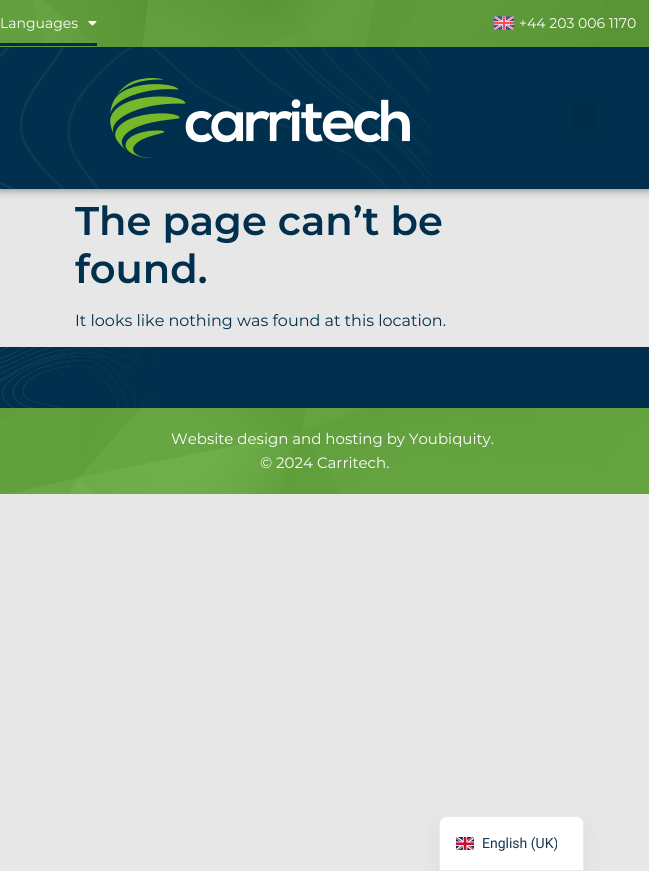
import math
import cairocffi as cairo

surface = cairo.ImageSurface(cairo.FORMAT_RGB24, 649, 871)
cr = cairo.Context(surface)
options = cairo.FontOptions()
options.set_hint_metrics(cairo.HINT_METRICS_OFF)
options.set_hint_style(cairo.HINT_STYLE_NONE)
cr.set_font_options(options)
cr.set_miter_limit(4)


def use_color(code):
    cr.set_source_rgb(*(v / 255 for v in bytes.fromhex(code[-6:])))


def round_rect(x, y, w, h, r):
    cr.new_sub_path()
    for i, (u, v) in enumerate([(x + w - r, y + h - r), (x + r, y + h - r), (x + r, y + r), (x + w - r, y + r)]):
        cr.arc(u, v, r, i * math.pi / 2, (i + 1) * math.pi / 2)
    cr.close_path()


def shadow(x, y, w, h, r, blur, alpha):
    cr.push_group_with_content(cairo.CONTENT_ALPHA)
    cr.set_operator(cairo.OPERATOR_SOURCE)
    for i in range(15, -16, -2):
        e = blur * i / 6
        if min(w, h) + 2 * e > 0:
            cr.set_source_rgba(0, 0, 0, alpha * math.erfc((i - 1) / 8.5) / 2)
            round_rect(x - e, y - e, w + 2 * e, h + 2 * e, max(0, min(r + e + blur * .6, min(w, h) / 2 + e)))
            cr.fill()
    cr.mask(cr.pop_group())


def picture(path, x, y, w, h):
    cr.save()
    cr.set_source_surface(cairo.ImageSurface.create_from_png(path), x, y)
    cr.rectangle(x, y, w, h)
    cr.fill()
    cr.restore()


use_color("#e7e7e7")
cr.paint()
use_color("#000000")
shadow(0, 47, 649, 142, 0, 5, 0.5)
use_color("#72bf44")
cr.rectangle(0, 0, 649, 47)
cr.fill()
picture("img1.png", 0, 0, 649, 47)
cr.select_font_face("Montserrat")
cr.set_font_size(14)
use_color("#ffffff")
cr.move_to(0, 28)
cr.show_text("Languages")
picture("img2.png", 88, 21, 9, 5)
use_color("#00304d")
cr.rectangle(0, 43, 97, 3)
cr.fill()
picture("img3.png", 494, 16, 20, 14)
use_color("#ffffff")
cr.move_to(519, 28)
cr.show_text("+44 203 006 1170")
use_color("#00304d")
cr.rectangle(0, 47, 649, 142)
cr.fill()
picture("img4.png", 0, 47, 431, 142)
picture("img5.png", 110, 78, 300, 80)
use_color("#002e49")
round_rect(570, 102, 28, 33, 3)
cr.fill()
cr.select_font_face("Montserrat SemiBold")
cr.set_font_size(40)
use_color("#00304d")
cr.move_to(75, 235)
cr.show_text("The page can’t be")
cr.move_to(75, 283)
cr.show_text("found.")
cr.select_font_face("Montserrat")
cr.set_font_size(16)
cr.move_to(75, 326)
cr.show_text("It looks like nothing was found at this location.")
cr.rectangle(0, 347, 649, 61)
cr.fill()
picture("img6.png", 0, 347, 156, 61)
use_color("#72bf44")
cr.rectangle(0, 408, 649, 86)
cr.fill()
picture("img7.png", 0, 408, 649, 86)
cr.set_font_size(15)
use_color("#ffffff")
cr.move_to(171, 444)
cr.show_text("Website design and hosting by Youbiquity.")
cr.move_to(260, 468)
cr.show_text("© 2024 Carritech.")
use_color("#000000")
shadow(439, 826, 145, 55, 8, 10, 0.05)
use_color("#ffffff")
cr.new_path()
cr.move_to(447, 816)
cr.line_to(576, 816)
cr.curve_to(580.5, 816, 584, 819.5, 584, 824)
cr.line_to(584, 871)
cr.line_to(439, 871)
cr.line_to(439, 824)
cr.curve_to(439, 819.5, 442.5, 816, 447, 816)
cr.close_path()
cr.fill()
cr.new_path()
cr.move_to(447, 816.5)
cr.line_to(576, 816.5)
cr.curve_to(580, 816.5, 583.5, 820, 583.5, 824)
cr.line_to(583.5, 870.5)
cr.line_to(439.5, 870.5)
cr.line_to(439.5, 824)
cr.curve_to(439.5, 820, 443, 816.5, 447, 816.5)
cr.close_path()
cr.set_source_rgba(0.078, 0.22, 0.322, 0.1)
cr.set_line_width(1)
cr.stroke()
picture("img8.png", 456, 837, 18, 13)
cr.select_font_face("Roboto")
cr.set_font_size(14)
use_color("#143852")
cr.move_to(482, 848)
cr.show_text("English (UK)")
surface.write_to_png("result.png")
